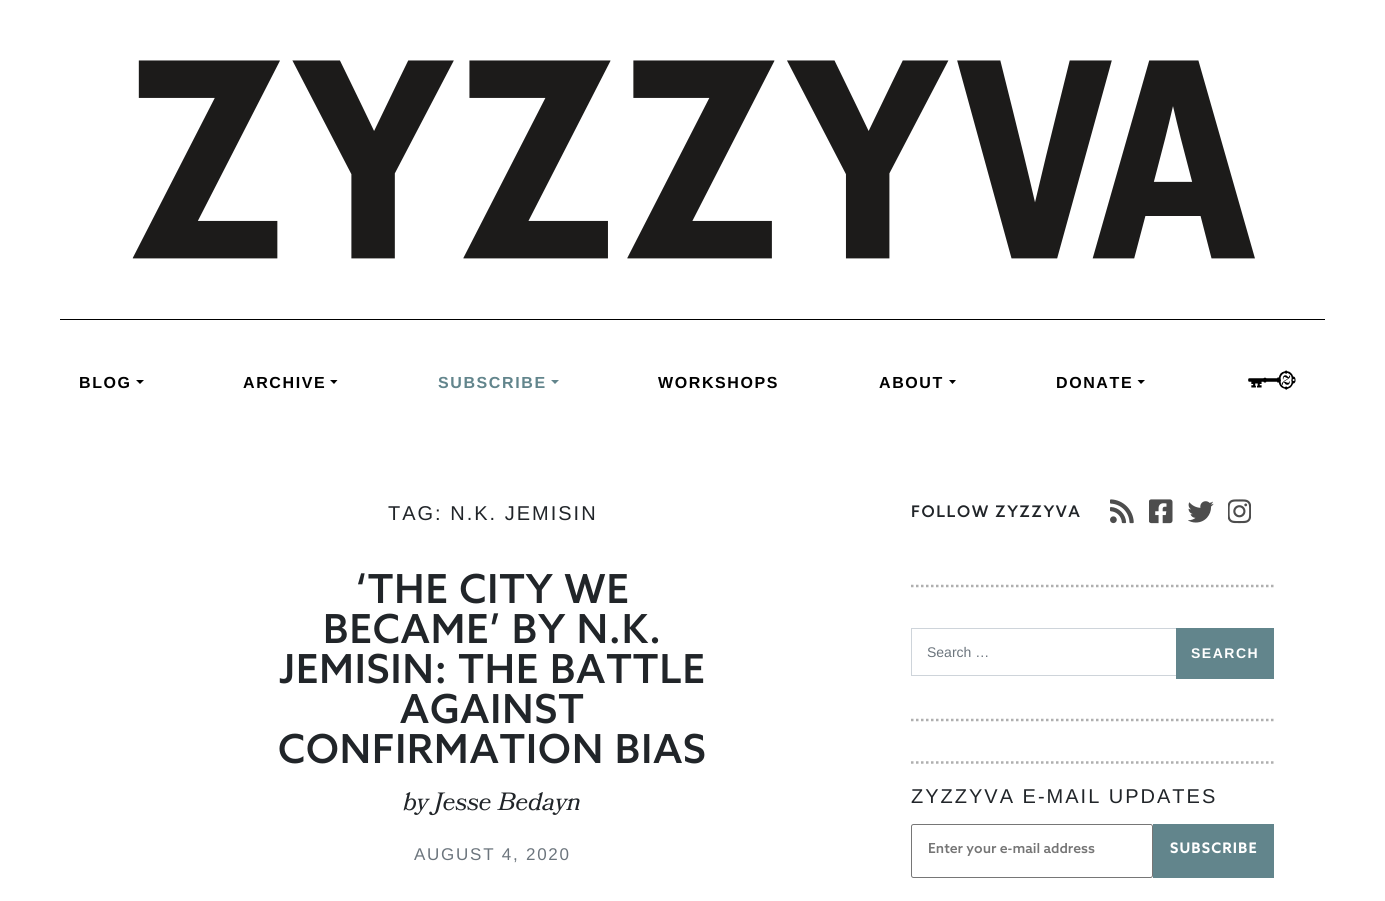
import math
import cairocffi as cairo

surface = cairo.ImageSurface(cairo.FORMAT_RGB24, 1385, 901)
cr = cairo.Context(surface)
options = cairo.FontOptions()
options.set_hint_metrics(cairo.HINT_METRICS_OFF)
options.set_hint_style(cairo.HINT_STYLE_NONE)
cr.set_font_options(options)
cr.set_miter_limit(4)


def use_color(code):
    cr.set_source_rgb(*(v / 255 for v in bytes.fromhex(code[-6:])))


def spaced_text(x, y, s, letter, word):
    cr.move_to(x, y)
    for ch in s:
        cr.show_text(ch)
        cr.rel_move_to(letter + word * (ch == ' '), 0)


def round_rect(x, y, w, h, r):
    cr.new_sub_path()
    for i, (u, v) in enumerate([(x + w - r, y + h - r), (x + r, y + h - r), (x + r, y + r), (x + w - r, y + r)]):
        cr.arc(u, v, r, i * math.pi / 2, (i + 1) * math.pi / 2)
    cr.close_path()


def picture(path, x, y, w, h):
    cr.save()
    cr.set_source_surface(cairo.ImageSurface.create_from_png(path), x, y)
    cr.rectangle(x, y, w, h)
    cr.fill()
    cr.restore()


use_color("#ffffff")
cr.paint()
use_color("#000000")
cr.rectangle(60, 319, 1265, 1)
cr.fill()
picture("img1.png", 132, 60, 1123, 199)
cr.select_font_face("Liberation Sans", cairo.FONT_SLANT_NORMAL, cairo.FONT_WEIGHT_BOLD)
cr.set_font_size(16)
spaced_text(79, 388, "BLOG", 1.6, 0)
cr.new_path()
cr.move_to(136, 380)
cr.line_to(144, 380)
cr.line_to(140, 384)
cr.close_path()
cr.fill()
spaced_text(243, 388, "ARCHIVE", 1.6, 0)
cr.new_path()
cr.move_to(330, 380)
cr.line_to(337.5, 380)
cr.line_to(334, 384)
cr.close_path()
cr.fill()
use_color("#62858c")
spaced_text(438, 388, "SUBSCRIBE", 1.6, 0)
cr.new_path()
cr.move_to(551, 380)
cr.line_to(559, 380)
cr.line_to(555, 384)
cr.close_path()
cr.fill()
use_color("#000000")
spaced_text(658, 388, "WORKSHOPS", 1.6, 0)
spaced_text(879, 388, "ABOUT", 1.6, 0)
cr.new_path()
cr.move_to(949, 380)
cr.line_to(956, 380)
cr.line_to(952.5, 384)
cr.close_path()
cr.fill()
spaced_text(1056, 388, "DONATE", 1.6, 0)
cr.new_path()
cr.move_to(1137.5, 380)
cr.line_to(1145, 380)
cr.line_to(1141, 384)
cr.close_path()
cr.fill()
picture("img2.png", 1248, 370, 48, 20)
cr.select_font_face("Liberation Sans")
cr.set_font_size(20)
use_color("#212529")
spaced_text(388, 520, "TAG: N.K. JEMISIN", 2, 0)
cr.select_font_face("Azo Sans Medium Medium")
cr.set_font_size(40)
spaced_text(356, 603, "‘THE CITY WE", 1, 0)
spaced_text(323, 643, "BECAME’ BY N.K.", 1, 0)
spaced_text(279, 683, "JEMISIN: THE BATTLE", 1, 0)
spaced_text(400, 723, "AGAINST", 1, 0)
spaced_text(278, 763, "CONFIRMATION BIAS", 1, 0)
cr.select_font_face("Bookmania", cairo.FONT_SLANT_ITALIC)
cr.set_font_size(25)
cr.move_to(403, 810)
cr.show_text("by Jesse Bedayn")
cr.select_font_face("Liberation Sans")
cr.set_font_size(17)
use_color("#6c757d")
spaced_text(414, 860, "AUGUST 4, 2020", 1.75, 0)
cr.select_font_face("Azo Sans Medium Medium")
cr.set_font_size(16)
use_color("#212529")
spaced_text(911, 517, "FOLLOW ZYZZYVA", 1.6, 0)
picture("img3.png", 1110, 499, 24, 25)
picture("img4.png", 1149, 499, 24, 25)
picture("img5.png", 1188, 501, 26, 22)
picture("img6.png", 1228, 499, 23, 25)
cr.new_path()
cr.move_to(911, 586)
cr.line_to(1274, 586)
use_color("#afafaf")
cr.set_line_width(2.5)
cr.set_dash([2.5, 2.5])
cr.stroke()
cr.new_path()
cr.move_to(911, 720)
cr.line_to(1274, 720)
cr.stroke()
cr.rectangle(911.5, 628.5, 266, 47)
use_color("#ced4da")
cr.set_line_width(1)
cr.set_dash([])
cr.stroke()
cr.select_font_face("Liberation Sans")
cr.set_font_size(14)
use_color("#6c757d")
cr.move_to(927, 657)
cr.show_text("Search …")
use_color("#62858c")
cr.rectangle(1176, 628, 98, 51)
cr.fill()
cr.select_font_face("Liberation Sans", cairo.FONT_SLANT_NORMAL, cairo.FONT_WEIGHT_BOLD)
use_color("#ffffff")
spaced_text(1191, 658, "SEARCH", 1.5, 0)
cr.new_path()
cr.move_to(911, 762.5)
cr.line_to(1274, 762.5)
use_color("#afafaf")
cr.set_line_width(2.5)
cr.set_dash([2.5, 2.5])
cr.stroke()
cr.select_font_face("Liberation Sans")
cr.set_font_size(20)
use_color("#212529")
spaced_text(911, 803, "ZYZZYVA E-MAIL UPDATES", 2, 0)
round_rect(911.5, 824.5, 241, 53, 2)
use_color("#767676")
cr.set_line_width(1)
cr.set_dash([])
cr.stroke()
cr.save()
cr.rectangle(928, 843, 208, 13)
cr.clip()
cr.select_font_face("Azo Sans Medium Medium")
cr.set_font_size(14)
use_color("#757575")
cr.move_to(928, 853)
cr.show_text("Enter your e-mail address")
cr.restore()
use_color("#62858c")
cr.rectangle(1153, 824, 121, 54)
cr.fill()
cr.select_font_face("Azo Sans Medium", cairo.FONT_SLANT_NORMAL, cairo.FONT_WEIGHT_BOLD)
cr.set_font_size(14)
use_color("#ffffff")
spaced_text(1170, 853, "SUBSCRIBE", 1.5, 0)
surface.write_to_png("result.png")
